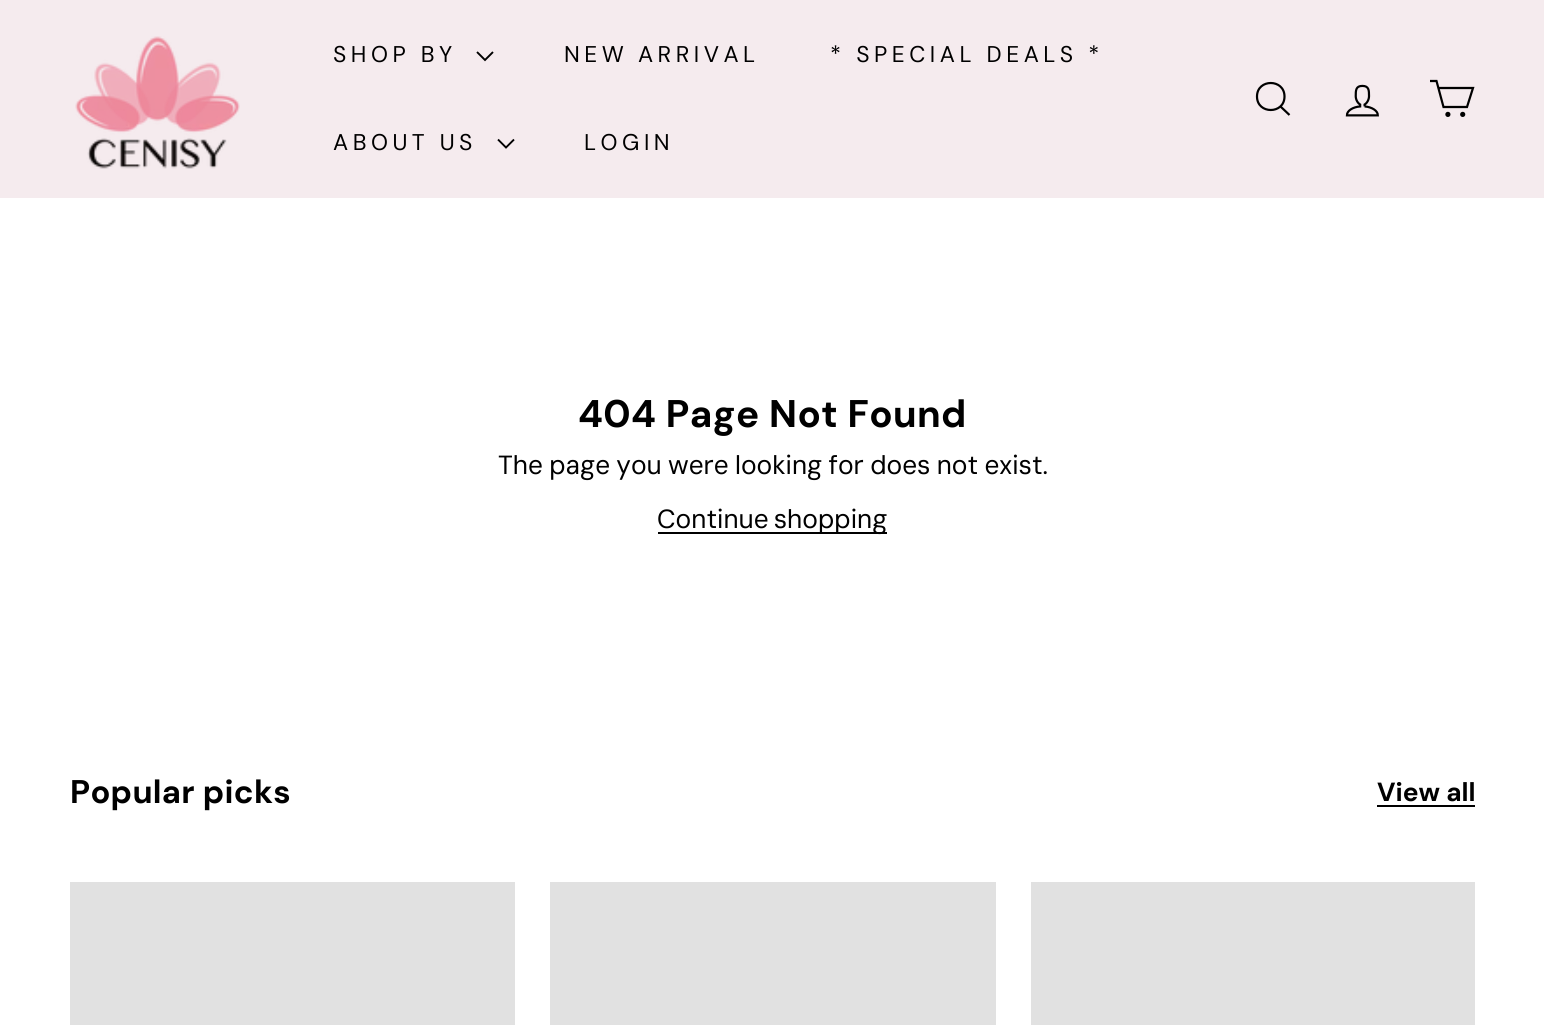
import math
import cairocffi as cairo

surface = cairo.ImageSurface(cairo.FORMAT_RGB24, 1544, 1025)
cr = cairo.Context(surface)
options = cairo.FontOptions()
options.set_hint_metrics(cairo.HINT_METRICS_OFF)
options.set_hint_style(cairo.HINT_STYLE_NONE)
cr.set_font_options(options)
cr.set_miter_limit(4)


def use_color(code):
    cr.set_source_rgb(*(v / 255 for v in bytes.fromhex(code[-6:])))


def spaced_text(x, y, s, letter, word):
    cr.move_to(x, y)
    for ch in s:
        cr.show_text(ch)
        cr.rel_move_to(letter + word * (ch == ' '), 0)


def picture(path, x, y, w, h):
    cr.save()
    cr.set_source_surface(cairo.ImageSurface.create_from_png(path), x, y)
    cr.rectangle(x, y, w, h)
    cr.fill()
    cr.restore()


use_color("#ffffff")
cr.paint()
use_color("#f5ebee")
cr.rectangle(0, 0, 1544, 198)
cr.fill()
picture("img1.png", 75, 36, 165, 133)
cr.select_font_face("DM Sans")
cr.set_font_size(22.75)
use_color("#000000")
spaced_text(333, 62, "SHOP BY", 4.5, 0)
cr.new_path()
cr.move_to(477, 52)
cr.line_to(485, 60)
cr.line_to(493, 52)
cr.set_line_width(1.9)
cr.stroke()
spaced_text(564, 62, "NEW ARRIVAL", 4.5, -1)
spaced_text(830, 62, "* SPECIAL DEALS *", 4.5, 0)
spaced_text(333, 150, "ABOUT US", 4.5, 0)
cr.new_path()
cr.move_to(498, 139.5)
cr.line_to(506, 147.5)
cr.line_to(514, 139.5)
cr.stroke()
spaced_text(584, 150, "LOGIN", 4.5, 0)
cr.new_path()
cr.move_to(1284.5, 96.5)
cr.curve_to(1284.5, 114.5, 1257, 114.5, 1257, 96.5)
cr.curve_to(1257, 78.5, 1284.5, 78.5, 1284.5, 96.5)
cr.move_to(1289.5, 115)
cr.line_to(1280.5, 106.5)
cr.set_line_width(2.2)
cr.stroke()
picture("img2.png", 1345, 84, 34, 33)
cr.new_path()
cr.move_to(1438.5, 88)
cr.line_to(1473, 88)
cr.line_to(1467, 107)
cr.line_to(1443.5, 107)
cr.line_to(1436.5, 81)
cr.line_to(1430, 81)
cr.stroke()
cr.arc(1447.9, 114.4, 1.5, 0, 2 * math.pi)
cr.fill_preserve()
cr.stroke()
cr.arc(1462.7, 114.4, 1.5, 0, 2 * math.pi)
cr.fill_preserve()
cr.stroke()
cr.select_font_face("DM Sans", cairo.FONT_SLANT_NORMAL, cairo.FONT_WEIGHT_BOLD)
cr.set_font_size(38.5)
spaced_text(578, 427, "404 Page Not Found", 0.4, 0)
cr.select_font_face("DM Sans")
cr.set_font_size(26.25)
spaced_text(498, 474, "The page you were looking for does not exist.", 0, -0.75)
cr.rectangle(658, 532, 229, 2)
cr.fill()
spaced_text(657, 528, "Continue shopping", 0, -2)
cr.select_font_face("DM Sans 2", cairo.FONT_SLANT_NORMAL, cairo.FONT_WEIGHT_BOLD)
cr.set_font_size(32.75)
spaced_text(70, 803, "Popular picks", 0.3, 0)
cr.select_font_face("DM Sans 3", cairo.FONT_SLANT_NORMAL, cairo.FONT_WEIGHT_BOLD)
cr.set_font_size(26.25)
cr.move_to(1377, 801)
cr.show_text("View all")
cr.rectangle(1377, 805, 98, 2)
cr.fill()
use_color("#e1e1e1")
cr.rectangle(70, 882, 445, 143)
cr.fill()
cr.rectangle(550, 882, 446, 143)
cr.fill()
cr.rectangle(1031, 882, 444, 143)
cr.fill()
surface.write_to_png("result.png")
